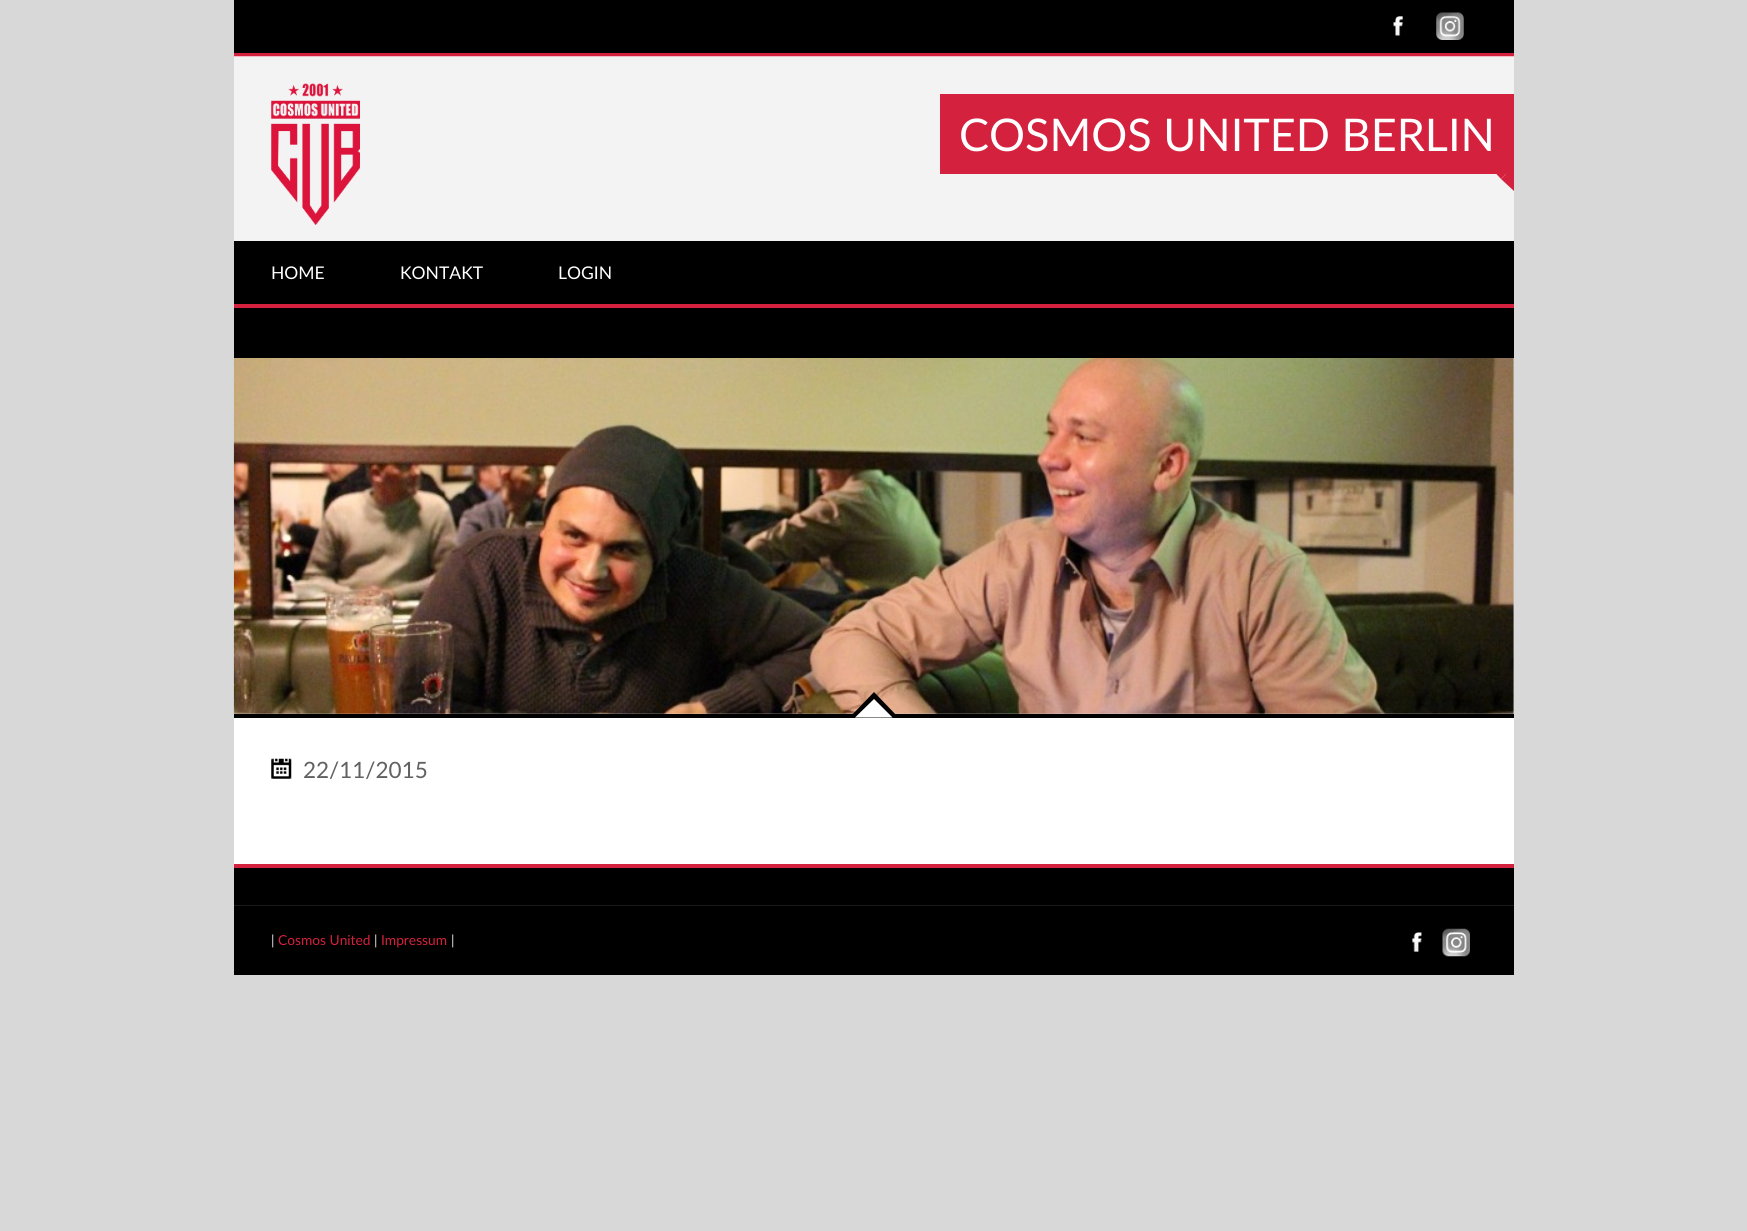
import math
import cairocffi as cairo

surface = cairo.ImageSurface(cairo.FORMAT_RGB24, 1747, 1231)
cr = cairo.Context(surface)
options = cairo.FontOptions()
options.set_hint_metrics(cairo.HINT_METRICS_OFF)
options.set_hint_style(cairo.HINT_STYLE_NONE)
cr.set_font_options(options)
cr.set_miter_limit(4)


def use_color(code):
    cr.set_source_rgb(*(v / 255 for v in bytes.fromhex(code[-6:])))


def picture(path, x, y, w, h):
    cr.save()
    cr.set_source_surface(cairo.ImageSurface.create_from_png(path), x, y)
    cr.rectangle(x, y, w, h)
    cr.fill()
    cr.restore()


use_color("#d8d8d8")
cr.paint()
use_color("#f3f3f3")
cr.rectangle(234, 57, 1280, 184)
cr.fill()
use_color("#000000")
cr.rectangle(234, 0, 1280, 53)
cr.fill()
use_color("#d4213d")
cr.rectangle(234, 53, 1280, 3)
cr.fill()
use_color("#f2bcc5")
cr.rectangle(234, 56, 1280, 1)
cr.fill()
picture("img1.png", 1393, 16, 10, 20)
picture("img2.png", 1436, 12, 28, 28)
picture("img3.png", 271, 83, 89, 142)
use_color("#d4213d")
cr.rectangle(940, 94, 574, 80)
cr.fill()
cr.select_font_face("Lato")
cr.set_font_size(45)
use_color("#ffffff")
cr.move_to(959, 151)
cr.show_text("COSMOS UNITED BERLIN")
use_color("#d4213d")
cr.new_path()
cr.move_to(1489, 166)
cr.line_to(1514, 166)
cr.line_to(1501, 179)
cr.close_path()
cr.fill()
cr.new_path()
cr.move_to(1514, 166)
cr.line_to(1514, 191)
cr.line_to(1501, 179)
cr.close_path()
cr.fill()
use_color("#000000")
cr.rectangle(234, 241, 1280, 63)
cr.fill()
use_color("#d4213d")
cr.rectangle(234, 304, 1280, 4)
cr.fill()
cr.set_font_size(17.5)
use_color("#ffffff")
cr.move_to(271, 279)
cr.show_text("HOME")
cr.move_to(400, 279)
cr.show_text("KONTAKT")
cr.move_to(558, 279)
cr.show_text("LOGIN")
picture("img4.png", 233, 357, 1281, 357)
use_color("#000000")
cr.rectangle(234, 308, 1280, 50)
cr.fill()
use_color("#ffffff")
cr.rectangle(234, 718, 1280, 146)
cr.fill()
use_color("#000000")
cr.rectangle(234, 714, 1280, 4)
cr.fill()
cr.new_path()
cr.move_to(899, 718)
cr.line_to(849, 718)
cr.line_to(874, 692)
cr.close_path()
cr.fill()
use_color("#ffffff")
cr.new_path()
cr.move_to(892.5, 717.5)
cr.line_to(855, 717.5)
cr.line_to(874, 699)
cr.close_path()
cr.fill()
picture("img5.png", 271, 758, 21, 21)
cr.set_font_size(22.5)
use_color("#616161")
cr.move_to(303, 778)
cr.show_text("22/11/2015")
use_color("#000000")
cr.rectangle(234, 868, 1280, 107)
cr.fill()
use_color("#d4213d")
cr.rectangle(234, 864, 1280, 4)
cr.fill()
use_color("#1a1a1a")
cr.rectangle(234, 905, 1280, 1)
cr.fill()
cr.set_font_size(13.75)
use_color("#e1e1e1")
cr.move_to(271, 945)
cr.show_text("|")
use_color("#d4213d")
cr.move_to(278, 945)
cr.show_text("Cosmos United")
use_color("#e1e1e1")
cr.move_to(374, 945)
cr.show_text("|")
use_color("#d4213d")
cr.move_to(381, 945)
cr.show_text("Impressum")
use_color("#e1e1e1")
cr.move_to(451, 945)
cr.show_text("|")
picture("img6.png", 1412, 932, 10, 20)
picture("img7.png", 1442, 928, 28, 29)
surface.write_to_png("result.png")
